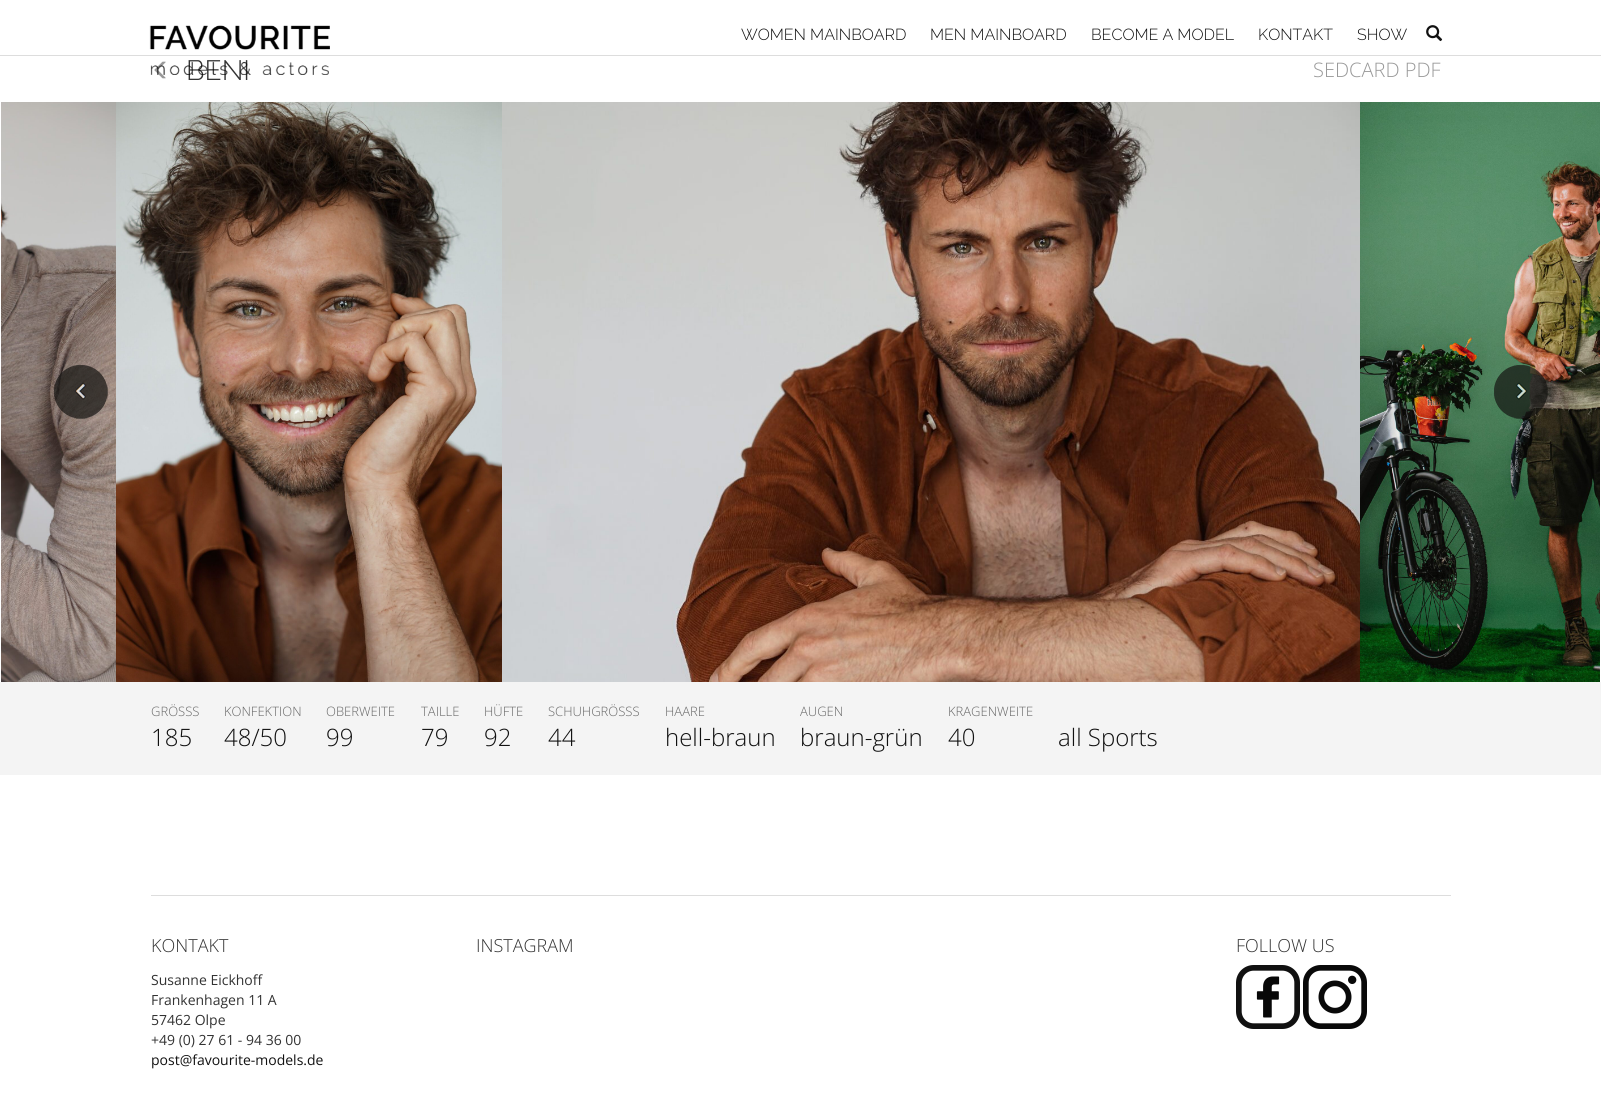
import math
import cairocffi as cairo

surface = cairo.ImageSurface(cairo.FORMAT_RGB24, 1601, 1099)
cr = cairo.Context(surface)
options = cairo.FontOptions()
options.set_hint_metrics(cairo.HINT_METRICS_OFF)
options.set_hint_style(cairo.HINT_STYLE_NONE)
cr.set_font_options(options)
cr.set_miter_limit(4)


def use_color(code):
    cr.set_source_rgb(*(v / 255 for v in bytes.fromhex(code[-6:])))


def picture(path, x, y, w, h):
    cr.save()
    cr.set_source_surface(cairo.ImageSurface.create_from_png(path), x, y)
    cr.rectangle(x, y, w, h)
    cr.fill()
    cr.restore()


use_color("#ffffff")
cr.paint()
use_color("#dddddd")
cr.rectangle(0, 55, 1601, 1)
cr.fill()
picture("img3.png", 154, 61, 12, 18)
cr.select_font_face("Raleway Light")
cr.set_font_size(28)
use_color("#333333")
cr.move_to(186, 80)
cr.show_text("BENI")
picture("img1.png", 149, 25, 181, 50)
cr.set_font_size(16)
use_color("#111111")
cr.move_to(741, 40)
cr.show_text("WOMEN MAINBOARD")
cr.move_to(930, 40)
cr.show_text("MEN MAINBOARD")
cr.move_to(1091, 40)
cr.show_text("BECOME A MODEL")
cr.move_to(1258, 40)
cr.show_text("KONTAKT")
cr.move_to(1357, 40)
cr.show_text("SHOW")
picture("img2.png", 1426, 25, 17, 17)
cr.select_font_face("Open Sans Light")
cr.set_font_size(20)
use_color("#999999")
cr.move_to(1313, 77)
cr.show_text("SEDCARD PDF")
picture("img4.png", 1, 102, 115, 580)
picture("img5.png", 116, 102, 386, 580)
picture("img6.png", 502, 102, 858, 580)
picture("img7.png", 1360, 102, 240, 580)
picture("img8.png", 54, 365, 54, 54)
picture("img9.png", 1494, 365, 54, 54)
use_color("#f4f4f4")
cr.rectangle(0, 682, 1601, 93)
cr.fill()
cr.set_font_size(13)
use_color("#666666")
cr.move_to(151, 716)
cr.show_text("GRÖSSS")
cr.set_font_size(24)
use_color("#111111")
cr.move_to(151, 746)
cr.show_text("185")
cr.set_font_size(13)
use_color("#666666")
cr.move_to(224, 716)
cr.show_text("KONFEKTION")
cr.set_font_size(24)
use_color("#111111")
cr.move_to(224, 746)
cr.show_text("48/50")
cr.set_font_size(13)
use_color("#666666")
cr.move_to(326, 716)
cr.show_text("OBERWEITE")
cr.set_font_size(24)
use_color("#111111")
cr.move_to(326, 746)
cr.show_text("99")
cr.set_font_size(13)
use_color("#666666")
cr.move_to(421, 716)
cr.show_text("TAILLE")
cr.set_font_size(24)
use_color("#111111")
cr.move_to(421, 746)
cr.show_text("79")
cr.set_font_size(13)
use_color("#666666")
cr.move_to(484, 716)
cr.show_text("HÜFTE")
cr.set_font_size(24)
use_color("#111111")
cr.move_to(484, 746)
cr.show_text("92")
cr.set_font_size(13)
use_color("#666666")
cr.move_to(548, 716)
cr.show_text("SCHUHGRÖSSS")
cr.set_font_size(24)
use_color("#111111")
cr.move_to(548, 746)
cr.show_text("44")
cr.set_font_size(13)
use_color("#666666")
cr.move_to(665, 716)
cr.show_text("HAARE")
cr.set_font_size(24)
use_color("#111111")
cr.move_to(665, 746)
cr.show_text("hell-braun")
cr.set_font_size(13)
use_color("#666666")
cr.move_to(800, 716)
cr.show_text("AUGEN")
cr.set_font_size(24)
use_color("#111111")
cr.move_to(800, 746)
cr.show_text("braun-grün")
cr.set_font_size(13)
use_color("#666666")
cr.move_to(948, 716)
cr.show_text("KRAGENWEITE")
cr.set_font_size(24)
use_color("#111111")
cr.move_to(948, 746)
cr.show_text("40")
cr.move_to(1058, 746)
cr.show_text("all Sports")
use_color("#dddddd")
cr.rectangle(151, 895, 1300, 1)
cr.fill()
cr.set_font_size(18)
use_color("#333333")
cr.move_to(151, 952)
cr.show_text("KONTAKT")
cr.select_font_face("Open Sans")
cr.set_font_size(14)
cr.move_to(151, 985)
cr.show_text("Susanne Eickhoff")
cr.move_to(151, 1005)
cr.show_text("Frankenhagen 11 A")
cr.move_to(151, 1025)
cr.show_text("57462 Olpe")
cr.move_to(151, 1045)
cr.show_text("+49 (0) 27 61 - 94 36 00")
use_color("#111111")
cr.move_to(151, 1065)
cr.show_text("post@favourite-models.de")
cr.select_font_face("Open Sans Light")
cr.set_font_size(18)
use_color("#333333")
cr.move_to(476, 952)
cr.show_text("INSTAGRAM")
cr.move_to(1236, 952)
cr.show_text("FOLLOW US")
picture("img10.png", 1236, 965, 64, 64)
picture("img11.png", 1303, 965, 64, 64)
surface.write_to_png("result.png")
